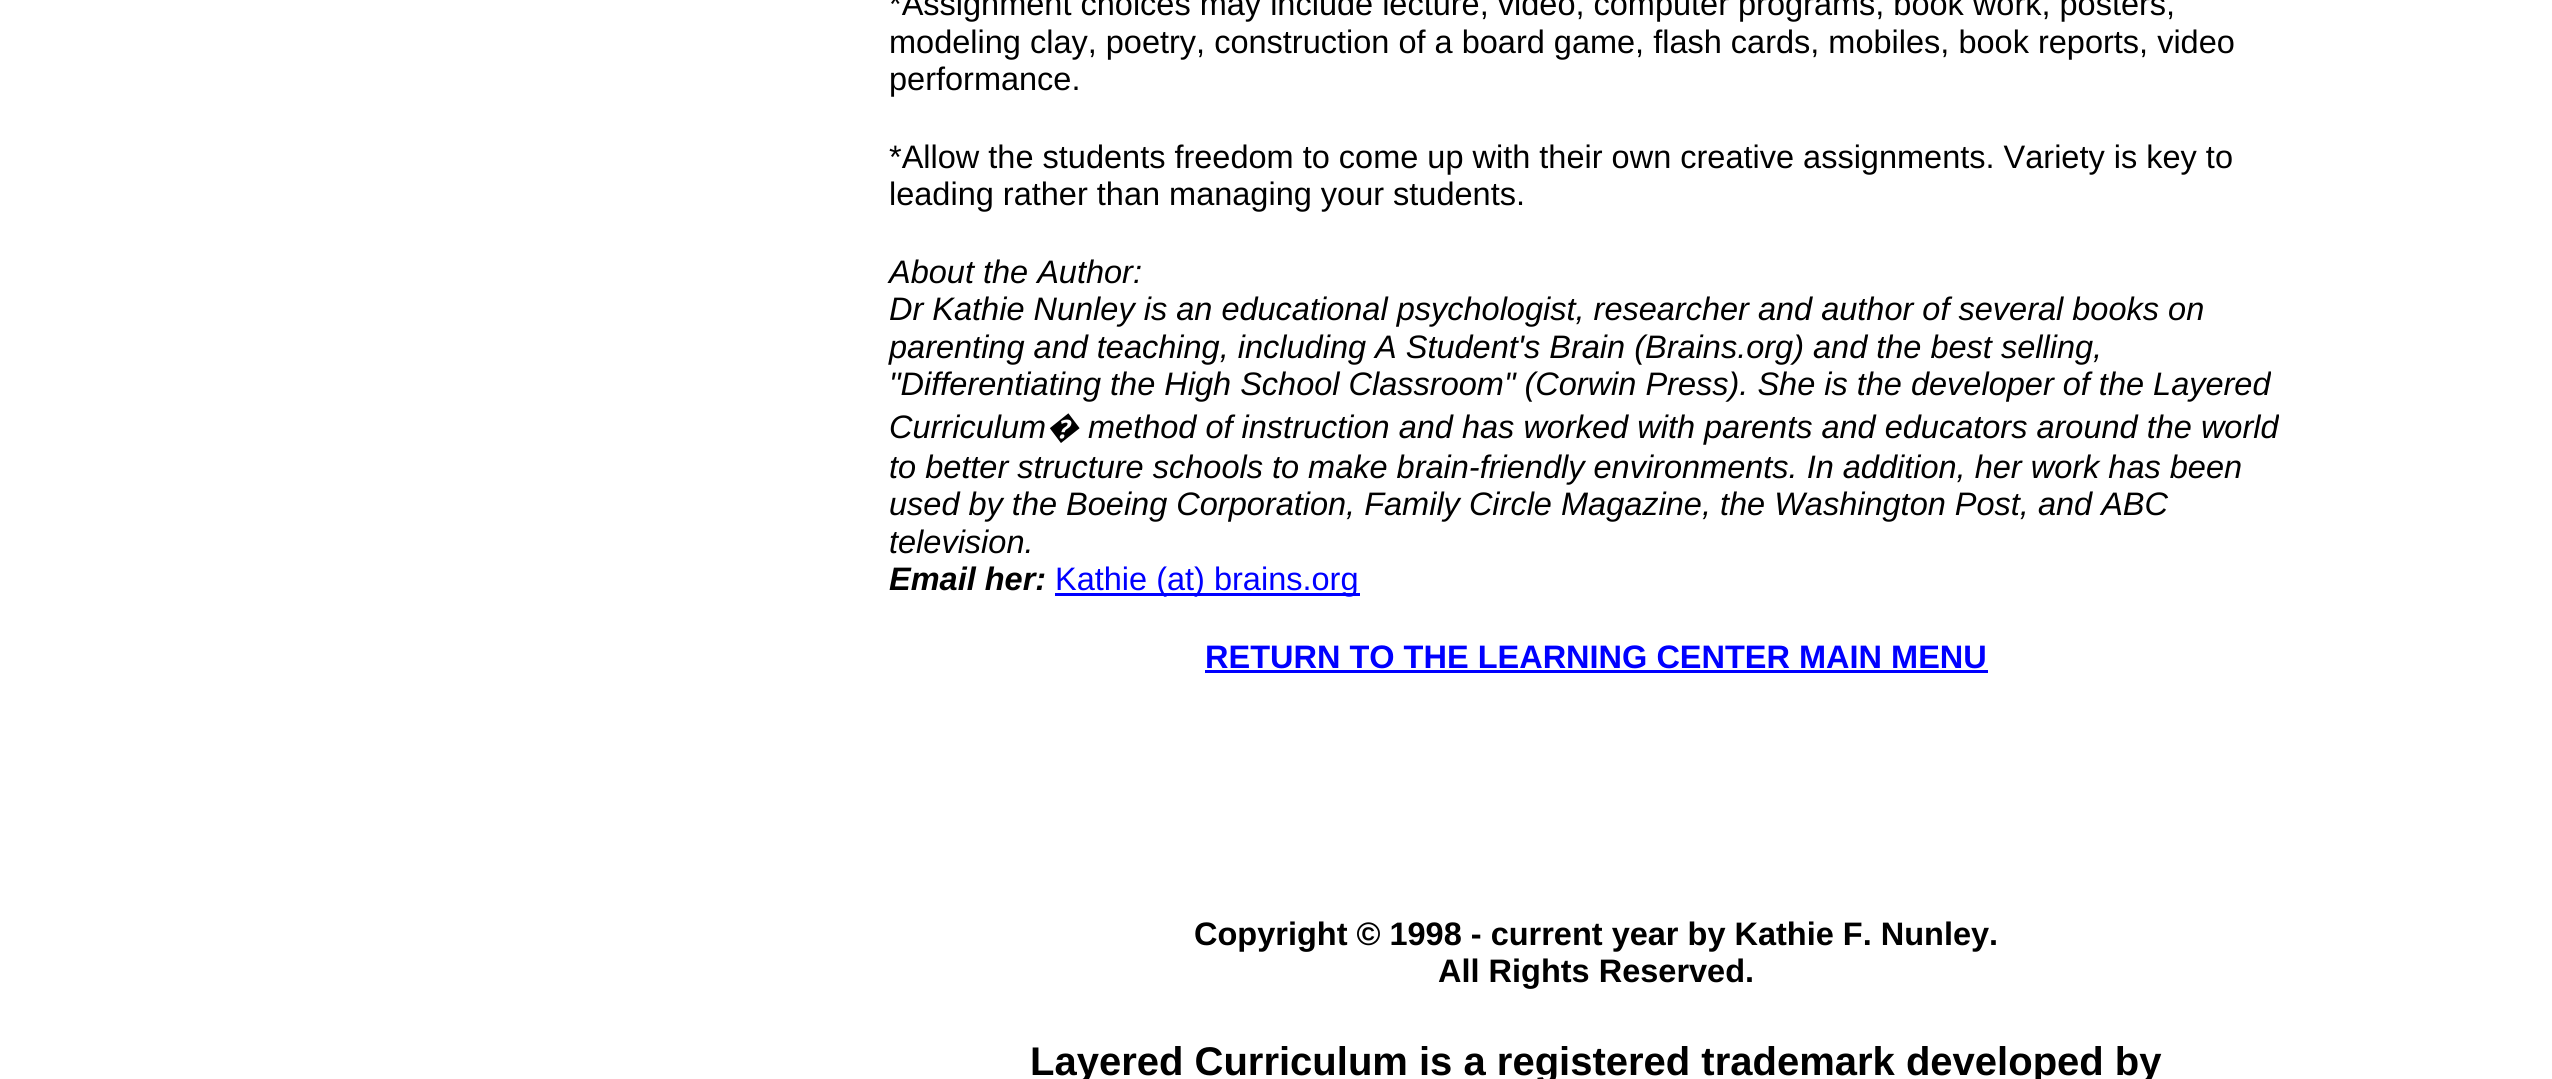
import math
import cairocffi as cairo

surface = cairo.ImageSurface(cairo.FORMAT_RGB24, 2552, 1079)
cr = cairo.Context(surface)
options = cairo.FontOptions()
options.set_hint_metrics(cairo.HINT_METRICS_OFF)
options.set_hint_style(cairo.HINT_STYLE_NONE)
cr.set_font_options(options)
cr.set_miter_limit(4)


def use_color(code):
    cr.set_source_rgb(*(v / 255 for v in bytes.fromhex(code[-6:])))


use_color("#ffffff")
cr.paint()
cr.select_font_face("Liberation Sans")
cr.set_font_size(32.5)
use_color("#000000")
cr.move_to(889, 15)
cr.show_text("*Assignment choices may include lecture, video, computer programs, book work, posters,")
cr.move_to(889, 53)
cr.show_text("modeling clay, poetry, construction of a board game, flash cards, mobiles, book reports, video")
cr.move_to(889, 90)
cr.show_text("performance.")
cr.move_to(889, 168)
cr.show_text("*Allow the students freedom to come up with their own creative assignments. Variety is key to")
cr.move_to(889, 205)
cr.show_text("leading rather than managing your students.")
cr.select_font_face("Liberation Sans", cairo.FONT_SLANT_ITALIC)
cr.move_to(889, 283)
cr.show_text("About the Author:")
cr.move_to(889, 320)
cr.show_text("Dr Kathie Nunley is an educational psychologist, researcher and author of several books on")
cr.move_to(889, 358)
cr.show_text("parenting and teaching, including A Student's Brain (Brains.org) and the best selling,")
cr.move_to(889, 395)
cr.show_text("\"Differentiating the High School Classroom\" (Corwin Press). She is the developer of the Layered")
cr.move_to(889, 438)
cr.show_text("Curriculum")
cr.select_font_face("Noto Sans", cairo.FONT_SLANT_ITALIC)
cr.move_to(1046, 438)
cr.show_text("�")
cr.select_font_face("Liberation Sans", cairo.FONT_SLANT_ITALIC)
cr.move_to(1088, 438)
cr.show_text("method of instruction and has worked with parents and educators around the world")
cr.move_to(889, 478)
cr.show_text("to better structure schools to make brain-friendly environments. In addition, her work has been")
cr.move_to(889, 515)
cr.show_text("used by the Boeing Corporation, Family Circle Magazine, the Washington Post, and ABC")
cr.move_to(889, 553)
cr.show_text("television.")
cr.select_font_face("Liberation Sans", cairo.FONT_SLANT_ITALIC, cairo.FONT_WEIGHT_BOLD)
cr.move_to(889, 590)
cr.show_text("Email her:")
use_color("#0000ff")
cr.rectangle(1055, 593, 305, 3)
cr.fill()
cr.select_font_face("Liberation Sans")
cr.move_to(1055, 590)
cr.show_text("Kathie (at) brains.org")
cr.select_font_face("Liberation Sans", cairo.FONT_SLANT_NORMAL, cairo.FONT_WEIGHT_BOLD)
cr.move_to(1205, 668)
cr.show_text("RETURN TO THE LEARNING CENTER MAIN MENU")
cr.rectangle(1205, 670, 783, 3)
cr.fill()
use_color("#000000")
cr.move_to(1194, 945)
cr.show_text("Copyright © 1998 - current year by Kathie F. Nunley.")
cr.move_to(1438, 982)
cr.show_text("All Rights Reserved.")
cr.set_font_size(40)
cr.move_to(1030, 1075)
cr.show_text("Layered Curriculum is a registered trademark developed by")
surface.write_to_png("result.png")
